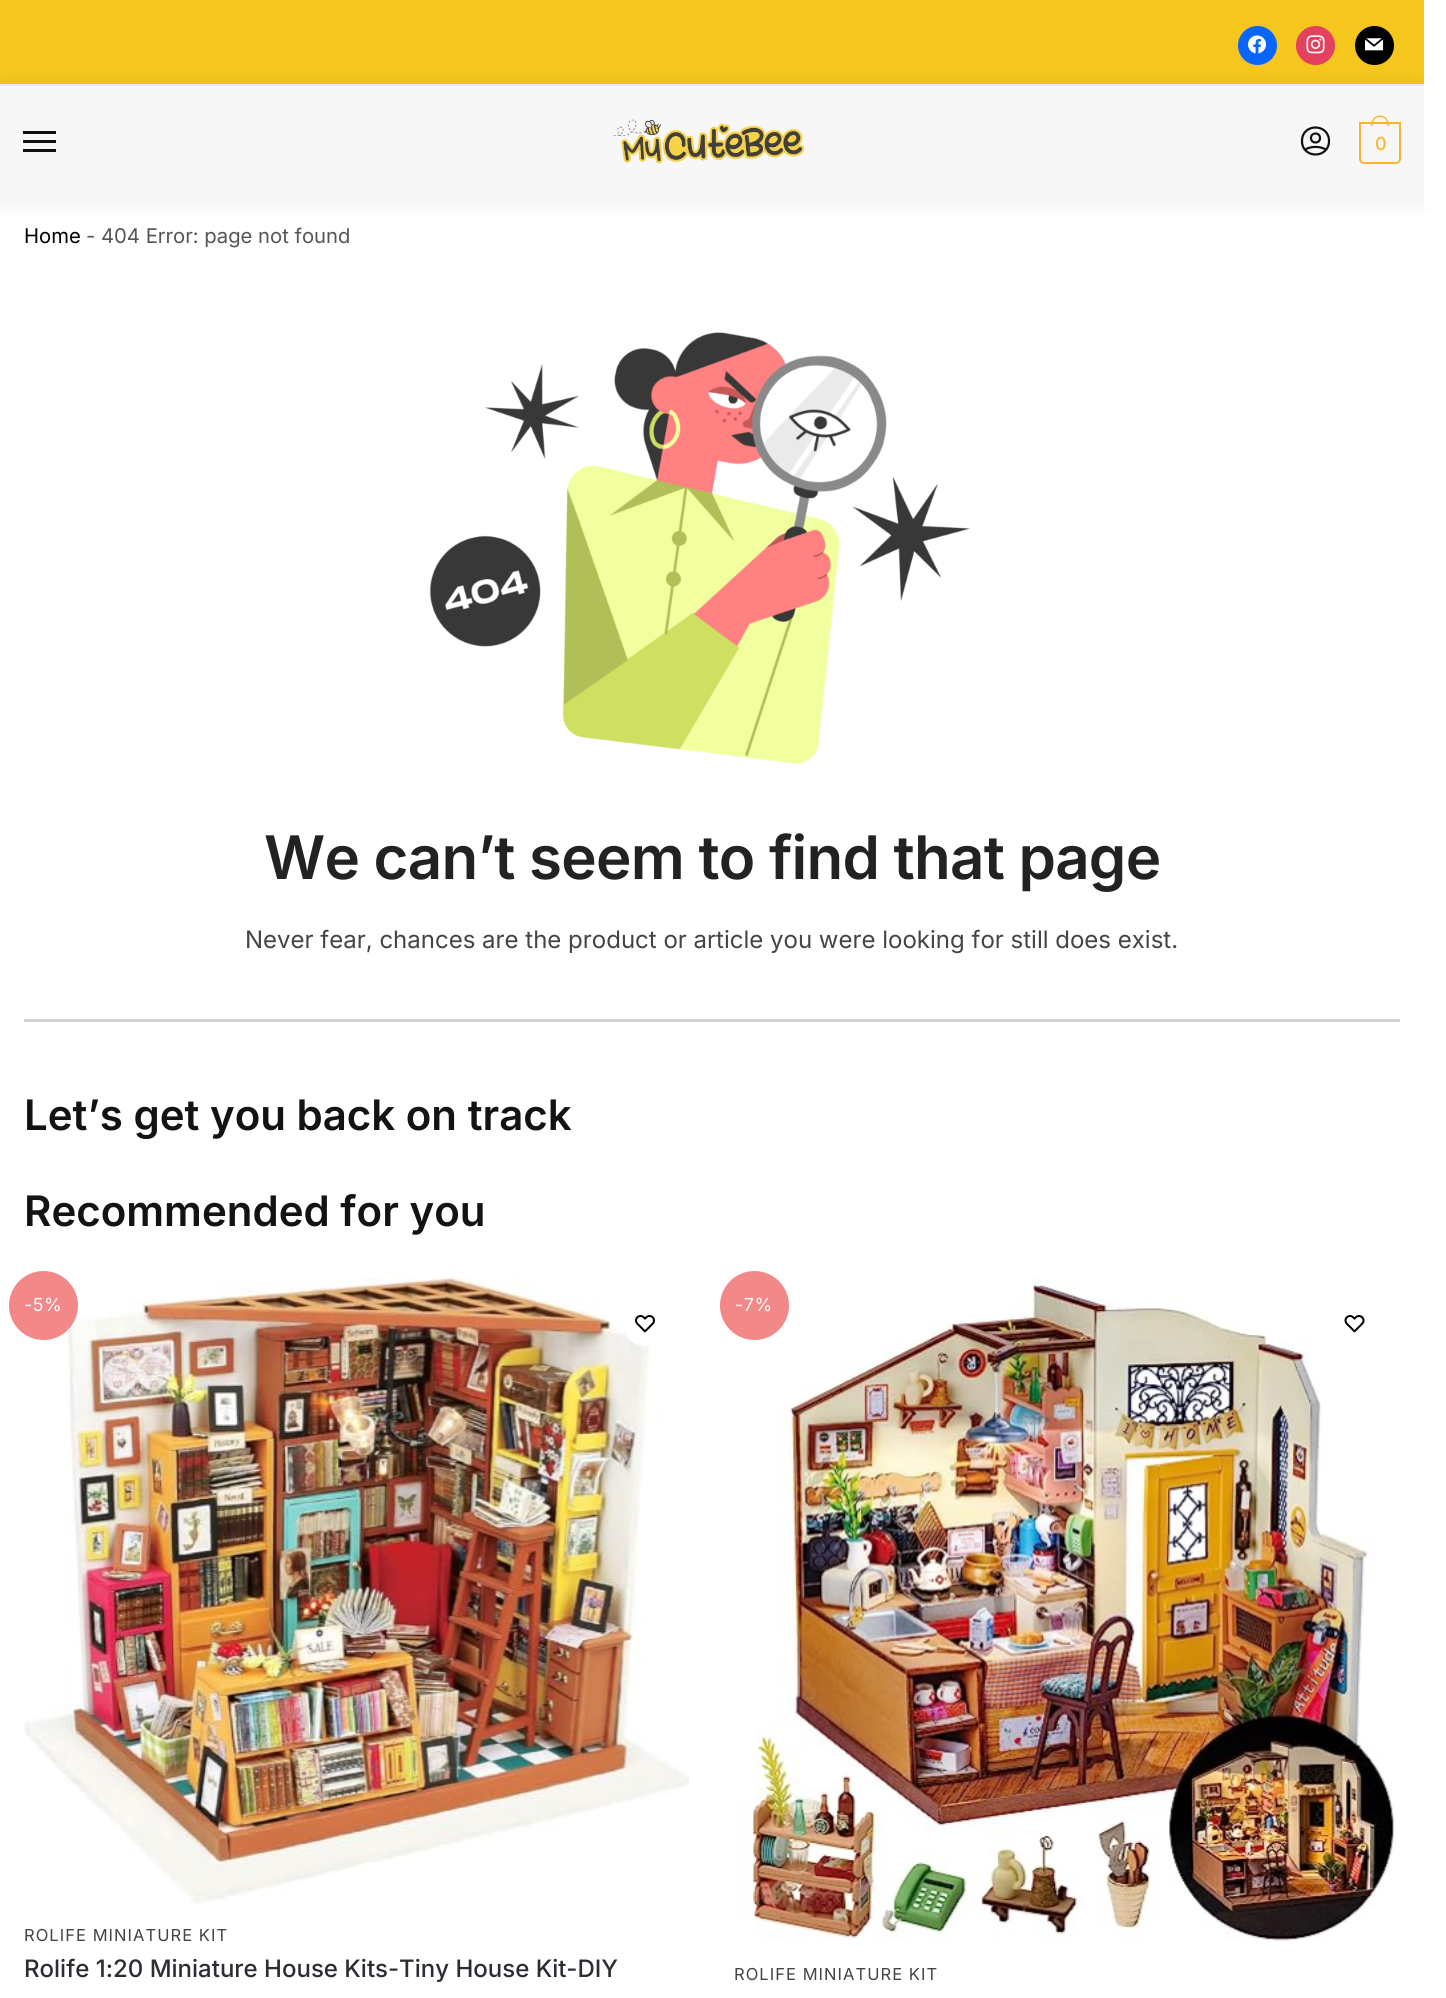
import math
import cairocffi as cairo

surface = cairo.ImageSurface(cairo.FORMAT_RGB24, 1446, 1998)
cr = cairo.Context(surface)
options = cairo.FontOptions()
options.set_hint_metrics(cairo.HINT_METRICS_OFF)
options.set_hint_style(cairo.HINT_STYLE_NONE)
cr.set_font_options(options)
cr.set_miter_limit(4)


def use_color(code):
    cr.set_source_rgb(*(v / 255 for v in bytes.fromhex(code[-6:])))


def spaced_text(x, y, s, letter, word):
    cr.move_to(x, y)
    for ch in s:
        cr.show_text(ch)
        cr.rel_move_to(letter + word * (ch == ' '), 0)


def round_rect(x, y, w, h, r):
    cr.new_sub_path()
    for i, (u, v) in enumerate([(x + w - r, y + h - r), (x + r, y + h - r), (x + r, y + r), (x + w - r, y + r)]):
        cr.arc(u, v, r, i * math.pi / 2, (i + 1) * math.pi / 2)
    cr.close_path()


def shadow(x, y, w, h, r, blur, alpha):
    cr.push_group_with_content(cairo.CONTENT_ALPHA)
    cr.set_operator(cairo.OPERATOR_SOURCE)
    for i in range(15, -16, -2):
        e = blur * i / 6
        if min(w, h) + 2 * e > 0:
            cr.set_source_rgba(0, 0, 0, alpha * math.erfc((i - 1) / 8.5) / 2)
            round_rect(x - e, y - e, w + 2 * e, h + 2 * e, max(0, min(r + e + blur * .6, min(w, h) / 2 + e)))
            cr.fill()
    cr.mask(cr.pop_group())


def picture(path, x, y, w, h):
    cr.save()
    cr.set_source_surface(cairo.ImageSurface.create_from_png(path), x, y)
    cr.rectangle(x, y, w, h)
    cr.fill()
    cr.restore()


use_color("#ffffff")
cr.paint()
use_color("#f5c61d")
cr.rectangle(0, 0, 1424, 84)
cr.fill()
use_color("#eeeeee")
cr.rectangle(0, 84, 1424, 2)
cr.fill()
use_color("#0866ff")
cr.arc(1257.5, 45.5, 19.5, 0, 2 * math.pi)
cr.fill()
picture("img1.png", 1248, 35, 18, 19)
use_color("#e4405f")
cr.arc(1315.5, 45.5, 19.5, 0, 2 * math.pi)
cr.fill()
picture("img2.png", 1306, 35, 19, 19)
use_color("#000000")
cr.arc(1374.5, 45.5, 19.5, 0, 2 * math.pi)
cr.fill()
picture("img3.png", 1365, 38, 19, 13)
use_color("#000000")
shadow(0, 87, 1424, 114, 0, 11, 0.08)
use_color("#f7f7f7")
cr.rectangle(0, 86, 1424, 114)
cr.fill()
use_color("#111111")
cr.rectangle(23, 131, 33, 3)
cr.fill()
cr.rectangle(23, 140, 33, 3)
cr.fill()
cr.rectangle(23, 149, 33, 3)
cr.fill()
picture("img4.png", 613, 119, 192, 45)
cr.new_path()
cr.move_to(1305, 149.5)
cr.curve_to(1311.5, 146, 1319.5, 146, 1326, 149.5)
cr.move_to(1320, 138)
cr.curve_to(1320, 144, 1311, 144, 1311, 138)
cr.curve_to(1311, 132, 1320, 132, 1320, 138)
cr.close_path()
cr.move_to(1329, 141)
cr.curve_to(1329, 159, 1302, 159, 1302, 141)
cr.curve_to(1302, 123, 1329, 123, 1329, 141)
cr.close_path()
cr.set_line_width(2.2)
cr.set_line_cap(cairo.LINE_CAP_ROUND)
cr.set_line_join(cairo.LINE_JOIN_ROUND)
cr.stroke()
cr.new_path()
cr.move_to(1360, 123)
cr.line_to(1400, 123)
cr.line_to(1400, 159)
cr.curve_to(1400, 161, 1398, 163, 1396, 163)
cr.line_to(1364, 163)
cr.curve_to(1362, 163, 1360, 161, 1360, 159)
cr.close_path()
use_color("#f9b52e")
cr.set_line_width(2)
cr.set_line_cap(cairo.LINE_CAP_BUTT)
cr.set_line_join(cairo.LINE_JOIN_MITER)
cr.stroke()
cr.set_fill_rule(cairo.FILL_RULE_EVEN_ODD)
cr.new_path()
cr.move_to(1380, 115.5)
cr.curve_to(1386, 115.5, 1389, 120.5, 1389, 126)
cr.line_to(1371, 126)
cr.curve_to(1371, 120.5, 1374, 115.5, 1380, 115.5)
cr.close_path()
cr.move_to(1380, 117)
cr.curve_to(1385.5, 117, 1387.5, 121.5, 1387.5, 126)
cr.line_to(1372.5, 126)
cr.curve_to(1372.5, 121.5, 1374.5, 117, 1380, 117)
cr.close_path()
cr.fill()
cr.select_font_face("Inter Medium")
cr.set_font_size(18)
spaced_text(1375, 150, "0", -1, 0)
use_color("#ffffff")
cr.rectangle(1424, 80, 13, 128)
cr.fill()
cr.select_font_face("Inter")
cr.set_font_size(20.25)
use_color("#000000")
cr.move_to(24, 243)
cr.show_text("Home")
use_color("#555555")
cr.move_to(86, 243)
cr.show_text("- 404 Error: page not found")
picture("img5.png", 429, 332, 541, 432)
cr.select_font_face("Inter SemiBold")
cr.set_font_size(60)
use_color("#222222")
spaced_text(264, 879, "We can’t seem to find that page", -0.75, 0)
cr.select_font_face("Inter")
cr.set_font_size(24)
use_color("#444444")
cr.move_to(245, 948)
cr.show_text("Never fear, chances are the product or article you were looking for still does exist.")
use_color("#d2d2d2")
cr.rectangle(24, 1019, 1376, 3)
cr.fill()
cr.select_font_face("Inter SemiBold")
cr.set_font_size(42)
use_color("#131315")
cr.move_to(24, 1130)
cr.show_text("Let’s get you back on track")
cr.move_to(24, 1226)
cr.show_text("Recommended for you")
picture("img6.png", 24, 1278, 666, 626)
use_color("#f38888")
cr.arc(43.5, 1305.5, 34.5, 0, 2 * math.pi)
cr.fill()
cr.select_font_face("Inter")
cr.set_font_size(18)
use_color("#ffffff")
spaced_text(24, 1311, "-5%", 0.5, 0)
cr.new_path()
cr.arc(645.5, 1323.5, 22.5, 0, 2 * math.pi)
cr.fill()
picture("img7.png", 635, 1315, 20, 18)
cr.set_font_size(16.5)
use_color("#444444")
spaced_text(24, 1941, "ROLIFE MINIATURE KIT", 1.05, 0)
cr.select_font_face("Inter Medium")
cr.set_font_size(24)
use_color("#2c2d33")
cr.move_to(24, 1977)
cr.show_text("Rolife 1:20 Miniature House Kits-Tiny House Kit-DIY")
picture("img8.png", 735, 1278, 660, 664)
use_color("#f38888")
cr.arc(754.5, 1305.5, 34.5, 0, 2 * math.pi)
cr.fill()
cr.select_font_face("Inter")
cr.set_font_size(18)
use_color("#ffffff")
spaced_text(735, 1311, "-7%", 0.5, 0)
picture("img9.png", 1344, 1315, 21, 18)
cr.set_font_size(16.5)
use_color("#444444")
spaced_text(734, 1980, "ROLIFE MINIATURE KIT", 1.05, 0)
surface.write_to_png("result.png")
